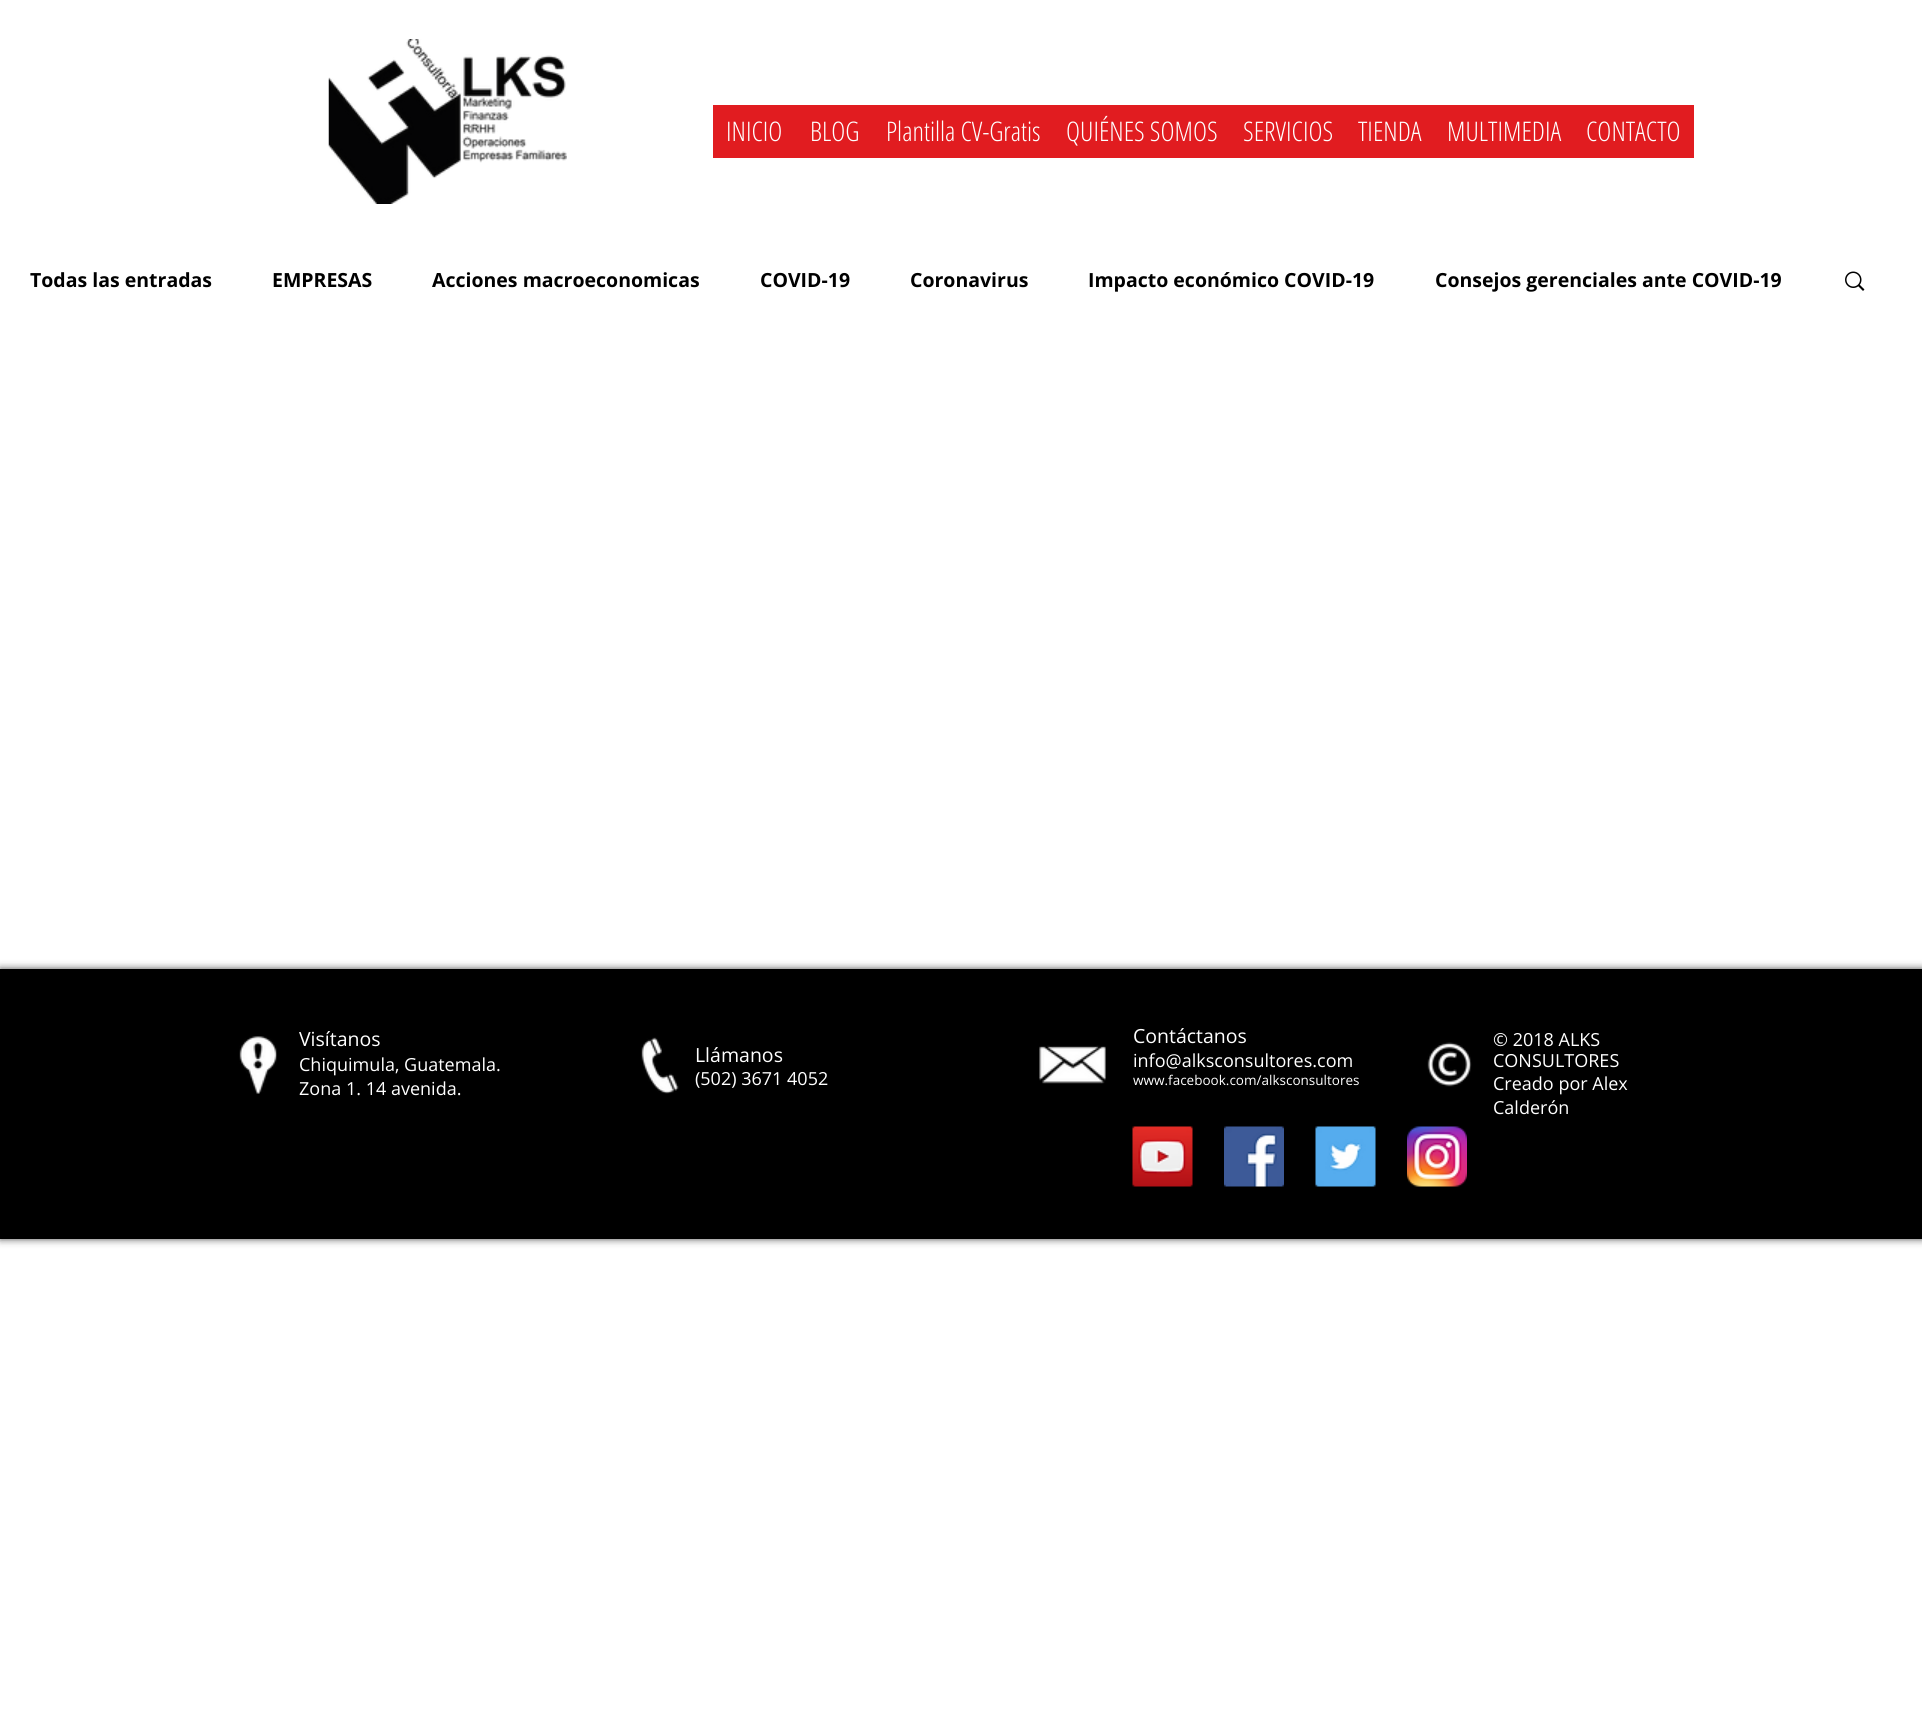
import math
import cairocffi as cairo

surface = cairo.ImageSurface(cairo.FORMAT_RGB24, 1922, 1720)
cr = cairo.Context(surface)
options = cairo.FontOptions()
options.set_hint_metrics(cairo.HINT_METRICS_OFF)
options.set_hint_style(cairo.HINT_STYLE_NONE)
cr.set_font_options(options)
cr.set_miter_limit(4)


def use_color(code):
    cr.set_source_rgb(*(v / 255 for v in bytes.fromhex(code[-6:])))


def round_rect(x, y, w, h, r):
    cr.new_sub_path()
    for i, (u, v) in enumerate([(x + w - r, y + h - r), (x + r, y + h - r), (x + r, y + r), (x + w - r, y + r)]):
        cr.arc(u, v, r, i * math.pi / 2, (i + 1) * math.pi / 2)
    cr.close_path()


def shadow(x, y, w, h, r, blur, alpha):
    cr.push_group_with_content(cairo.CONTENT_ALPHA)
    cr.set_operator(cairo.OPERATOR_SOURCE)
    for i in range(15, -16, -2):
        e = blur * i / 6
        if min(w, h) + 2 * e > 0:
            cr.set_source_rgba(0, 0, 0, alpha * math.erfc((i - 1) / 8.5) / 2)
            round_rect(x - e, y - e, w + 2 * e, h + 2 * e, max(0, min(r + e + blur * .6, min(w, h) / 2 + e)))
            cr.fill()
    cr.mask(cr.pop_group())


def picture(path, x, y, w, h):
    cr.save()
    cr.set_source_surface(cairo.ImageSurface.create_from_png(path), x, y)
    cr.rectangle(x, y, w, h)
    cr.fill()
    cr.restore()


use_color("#ffffff")
cr.paint()
picture("img1.png", 328, 39, 239, 165)
use_color("#e11c20")
cr.rectangle(713, 105, 981, 53)
cr.fill()
cr.select_font_face("Open Sans Condensed Light")
cr.set_font_size(27)
use_color("#ffffff")
cr.move_to(726, 141)
cr.show_text("INICIO")
cr.move_to(810, 141)
cr.show_text("BLOG")
cr.move_to(886, 141)
cr.show_text("Plantilla CV-Gratis")
cr.move_to(1066, 141)
cr.show_text("QUIÉNES SOMOS")
cr.move_to(1243, 141)
cr.show_text("SERVICIOS")
cr.move_to(1358, 141)
cr.show_text("TIENDA")
cr.move_to(1447, 141)
cr.show_text("MULTIMEDIA")
cr.move_to(1586, 141)
cr.show_text("CONTACTO")
cr.select_font_face("Open Sans", cairo.FONT_SLANT_NORMAL, cairo.FONT_WEIGHT_BOLD)
cr.set_font_size(19.5)
use_color("#000000")
cr.move_to(30, 287)
cr.show_text("Todas las entradas")
cr.move_to(272, 287)
cr.show_text("EMPRESAS")
cr.move_to(432, 287)
cr.show_text("Acciones macroeconomicas")
cr.move_to(760, 287)
cr.show_text("COVID-19")
cr.move_to(910, 287)
cr.show_text("Coronavirus")
cr.move_to(1088, 287)
cr.show_text("Impacto económico COVID-19")
cr.move_to(1435, 287)
cr.show_text("Consejos gerenciales ante COVID-19")
picture("img2.png", 1845, 271, 20, 20)
use_color("#000000")
shadow(0, 969, 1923, 270, 0, 4, 0.7)
use_color("#000000")
cr.rectangle(0, 969, 1922, 270)
cr.fill()
picture("img3.png", 239, 1036, 38, 58)
cr.select_font_face("Open Sans")
use_color("#ffffff")
cr.move_to(299, 1046)
cr.show_text("Visítanos")
cr.set_font_size(18)
cr.move_to(299, 1071)
cr.show_text("Chiquimula, Guatemala.")
cr.move_to(299, 1095)
cr.show_text("Zona 1. 14 avenida.")
picture("img4.png", 641, 1037, 38, 57)
cr.set_font_size(19.5)
cr.move_to(695, 1062)
cr.show_text("Llámanos")
cr.set_font_size(18)
cr.move_to(695, 1085)
cr.show_text("(502) 3671 4052")
picture("img5.png", 1039, 1045, 67, 39)
cr.set_font_size(19.5)
cr.move_to(1133, 1043)
cr.show_text("Contáctanos")
cr.set_font_size(18)
cr.move_to(1133, 1067)
cr.show_text("info@alksconsultores.com")
cr.set_font_size(13.5)
cr.move_to(1133, 1085)
cr.show_text("www.facebook.com/alksconsultores")
picture("img6.png", 1427, 1042, 45, 45)
cr.set_font_size(18)
cr.move_to(1493, 1046)
cr.show_text("© 2018 ALKS")
cr.move_to(1493, 1067)
cr.show_text("CONSULTORES")
cr.move_to(1493, 1090)
cr.show_text("Creado por Alex")
cr.move_to(1493, 1114)
cr.show_text("Calderón")
picture("img7.png", 1132, 1126, 61, 61)
picture("img8.png", 1224, 1126, 60, 61)
picture("img9.png", 1315, 1126, 61, 61)
picture("img10.png", 1407, 1126, 60, 61)
surface.write_to_png("result.png")
